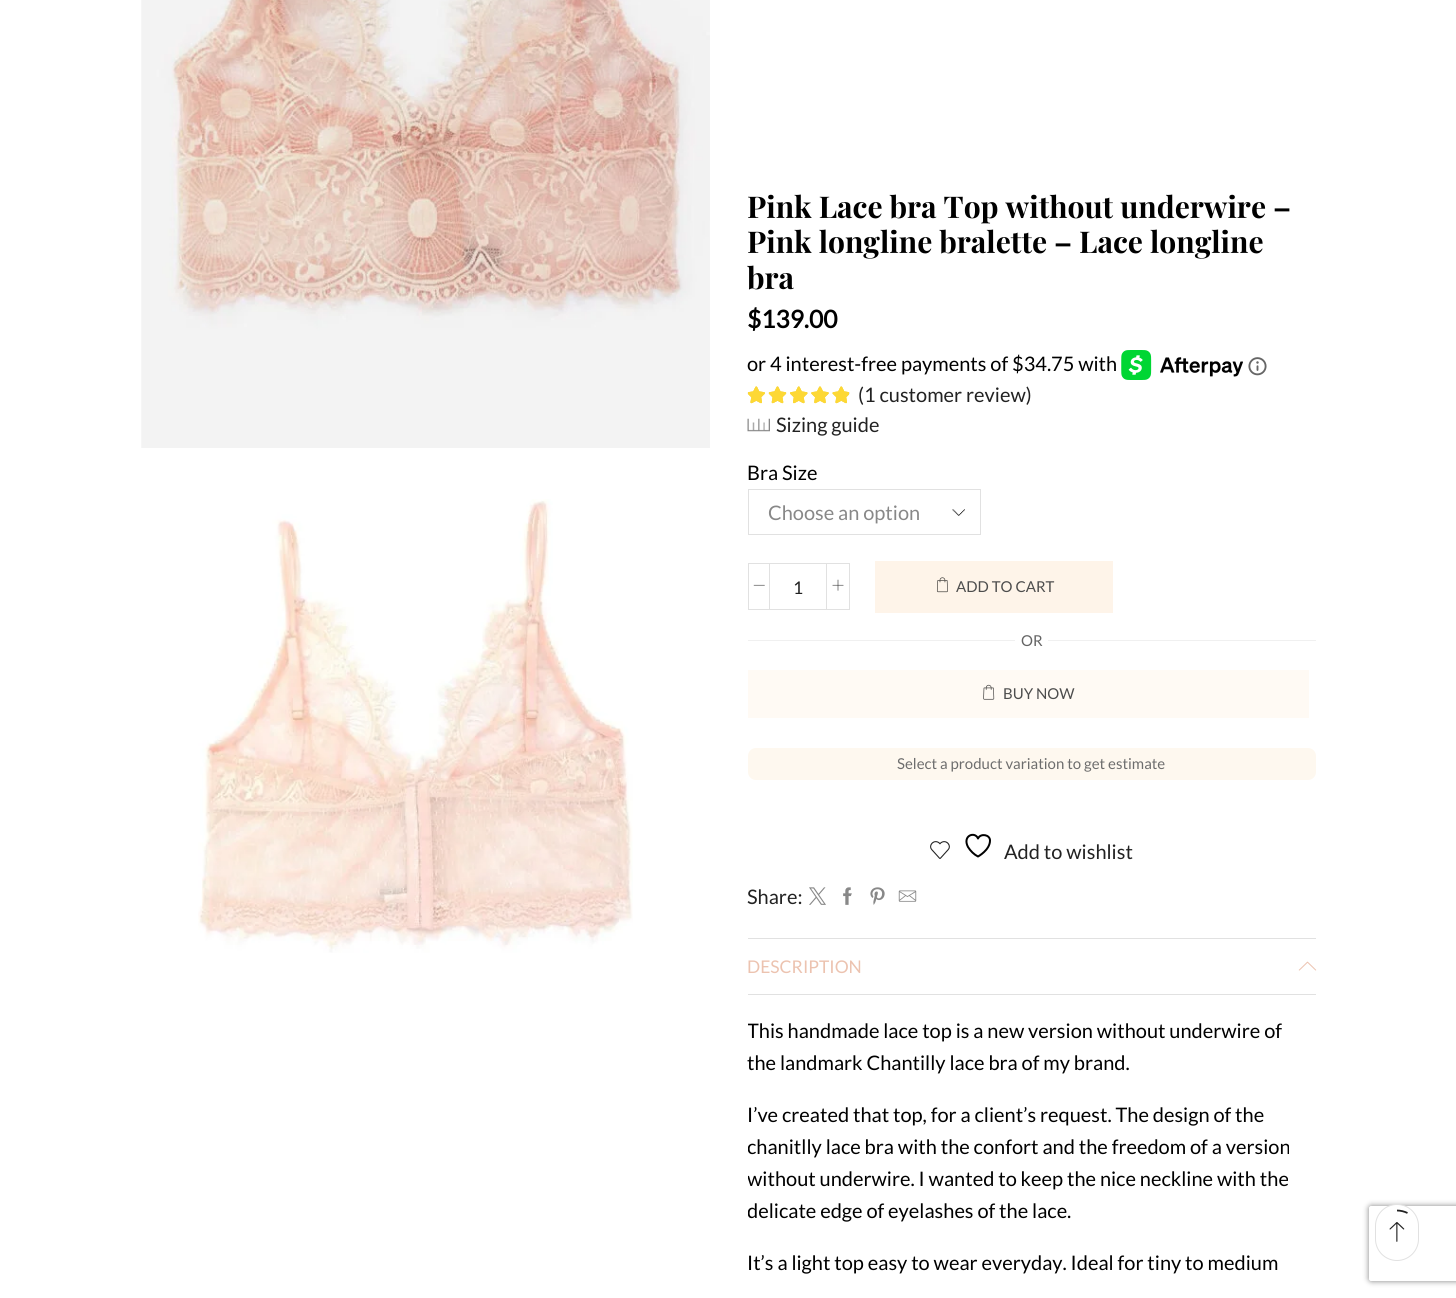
import math
import cairocffi as cairo

surface = cairo.ImageSurface(cairo.FORMAT_RGB24, 1456, 1298)
cr = cairo.Context(surface)
options = cairo.FontOptions()
options.set_hint_metrics(cairo.HINT_METRICS_OFF)
options.set_hint_style(cairo.HINT_STYLE_NONE)
cr.set_font_options(options)
cr.set_miter_limit(4)


def use_color(code):
    cr.set_source_rgb(*(v / 255 for v in bytes.fromhex(code[-6:])))


def round_rect(x, y, w, h, r):
    cr.new_sub_path()
    for i, (u, v) in enumerate([(x + w - r, y + h - r), (x + r, y + h - r), (x + r, y + r), (x + w - r, y + r)]):
        cr.arc(u, v, r, i * math.pi / 2, (i + 1) * math.pi / 2)
    cr.close_path()


def shadow(x, y, w, h, r, blur, alpha):
    cr.push_group_with_content(cairo.CONTENT_ALPHA)
    cr.set_operator(cairo.OPERATOR_SOURCE)
    for i in range(15, -16, -2):
        e = blur * i / 6
        if min(w, h) + 2 * e > 0:
            cr.set_source_rgba(0, 0, 0, alpha * math.erfc((i - 1) / 8.5) / 2)
            round_rect(x - e, y - e, w + 2 * e, h + 2 * e, max(0, min(r + e + blur * .6, min(w, h) / 2 + e)))
            cr.fill()
    cr.mask(cr.pop_group())


def picture(path, x, y, w, h):
    cr.save()
    cr.set_source_surface(cairo.ImageSurface.create_from_png(path), x, y)
    cr.rectangle(x, y, w, h)
    cr.fill()
    cr.restore()


use_color("#ffffff")
cr.paint()
picture("img1.png", 141, 0, 569, 448)
picture("img2.png", 198, 499, 435, 454)
cr.select_font_face("Playfair Display", cairo.FONT_SLANT_NORMAL, cairo.FONT_WEIGHT_BOLD)
cr.set_font_size(30)
use_color("#000000")
cr.move_to(747, 218)
cr.show_text("Pink Lace bra Top without underwire –")
cr.move_to(747, 253)
cr.show_text("Pink longline bralette – Lace longline")
cr.move_to(747, 289)
cr.show_text("bra")
cr.select_font_face("Lato", cairo.FONT_SLANT_NORMAL, cairo.FONT_WEIGHT_BOLD)
cr.set_font_size(24.5)
cr.move_to(747, 328)
cr.show_text("$139.00")
cr.select_font_face("Lato")
cr.set_font_size(20)
cr.move_to(747, 371)
cr.show_text("or 4 interest-free payments of $34.75 with")
picture("img3.png", 1121, 350, 122, 30)
picture("img4.png", 1248, 357, 19, 19)
picture("img5.png", 747, 386, 103, 17)
picture("img6.png", 748, 386, 101, 18)
picture("img7.png", 748, 386, 101, 18)
use_color("#222222")
cr.move_to(858, 402)
cr.show_text("(1 customer review)")
picture("img8.png", 747, 418, 23, 14)
cr.move_to(776, 432)
cr.show_text("Sizing guide")
use_color("#000000")
cr.move_to(747, 480)
cr.show_text("Bra Size")
picture("img9.png", 952, 509, 13, 7)
cr.rectangle(748.5, 489.5, 232, 45)
use_color("#e1e1e1")
cr.set_line_width(1)
cr.stroke()
use_color("#888888")
cr.move_to(768, 520)
cr.show_text("Choose an option")
cr.rectangle(748.5, 563.5, 21, 46)
use_color("#e1e1e1")
cr.stroke()
picture("img10.png", 753, 584, 12, 2)
cr.rectangle(770, 563, 56, 1)
cr.fill()
cr.rectangle(770, 609, 56, 1)
cr.fill()
cr.set_font_size(17.5)
use_color("#222222")
cr.move_to(793, 594)
cr.show_text("1")
cr.rectangle(826.5, 563.5, 23, 46)
use_color("#e1e1e1")
cr.stroke()
picture("img11.png", 832, 579, 12, 12)
use_color("#fef4e9")
cr.rectangle(875, 561, 238, 52)
cr.fill()
picture("img12.png", 936, 577, 12, 16)
cr.set_font_size(15)
use_color("#4d4d4d")
cr.move_to(956, 592)
cr.show_text("ADD TO CART")
use_color("#f0f0f0")
cr.rectangle(748, 640, 267, 1)
cr.fill()
use_color("#646464")
cr.move_to(1021, 646)
cr.show_text("OR")
use_color("#f0f0f0")
cr.rectangle(1048, 640, 268, 1)
cr.fill()
use_color("#fffaf4")
cr.rectangle(748, 670, 561, 48)
cr.fill()
picture("img13.png", 983, 684, 12, 16)
use_color("#4d4d4d")
cr.move_to(1003, 699)
cr.show_text("BUY NOW")
use_color("#fef8ef")
round_rect(748, 748, 568, 32, 8)
cr.fill()
use_color("#6d6d6d")
cr.move_to(897, 769)
cr.show_text("Select a product variation to get estimate")
picture("img14.png", 930, 841, 20, 18)
cr.new_path()
cr.move_to(990, 840.5)
cr.curve_to(990, 834.5, 980.5, 833, 978, 838.5)
cr.curve_to(975, 831, 962, 835.5, 968, 847)
cr.curve_to(970.5, 851, 974, 854.5, 978, 856.5)
cr.curve_to(978, 856.5, 990, 850, 990, 840.5)
cr.close_path()
use_color("#000000")
cr.set_line_width(2)
cr.set_line_cap(cairo.LINE_CAP_ROUND)
cr.set_line_join(cairo.LINE_JOIN_ROUND)
cr.stroke()
cr.set_font_size(20)
use_color("#222222")
cr.move_to(1004, 859)
cr.show_text("Add to wishlist")
cr.move_to(747, 904)
cr.show_text("Share:")
picture("img15.png", 809, 887, 17, 18)
picture("img16.png", 843, 887, 9, 18)
picture("img17.png", 870, 887, 15, 18)
picture("img18.png", 898, 890, 19, 12)
use_color("#e1e1e1")
cr.rectangle(748, 938, 568, 1)
cr.fill()
cr.rectangle(748, 994, 568, 1)
cr.fill()
cr.set_font_size(17.5)
use_color("#ecc3b0")
cr.move_to(747, 973)
cr.show_text("DESCRIPTION")
picture("img19.png", 1298, 961, 19, 10)
cr.save()
cr.rectangle(748, 1014, 568, 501)
cr.clip()
cr.set_font_size(20)
use_color("#000000")
cr.move_to(747, 1038)
cr.show_text("This handmade lace top is a new version without underwire of")
cr.restore()
cr.set_font_size(20)
use_color("#000000")
cr.move_to(747, 1070)
cr.show_text("the landmark Chantilly lace bra of my brand.")
cr.move_to(747, 1122)
cr.show_text("I’ve created that top, for a client’s request. The design of the")
cr.save()
cr.rectangle(748, 1014, 568, 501)
cr.clip()
cr.move_to(747, 1154)
cr.show_text("chanitlly lace bra with the confort and the freedom of a version")
cr.move_to(747, 1186)
cr.show_text("without underwire. I wanted to keep the nice neckline with the")
cr.move_to(747, 1218)
cr.show_text("delicate edge of eyelashes of the lace.")
cr.restore()
cr.move_to(747, 1270)
cr.show_text("It’s a light top easy to wear everyday. Ideal for tiny to medium")
cr.save()
cr.set_fill_rule(cairo.FILL_RULE_EVEN_ODD)
cr.new_path()
cr.move_to(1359, 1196)
cr.line_to(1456, 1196)
cr.line_to(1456, 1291)
cr.line_to(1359, 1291)
cr.close_path()
cr.move_to(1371.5, 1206)
cr.line_to(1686.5, 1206)
cr.curve_to(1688, 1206, 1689, 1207, 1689, 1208.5)
cr.line_to(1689, 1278.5)
cr.curve_to(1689, 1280, 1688, 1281, 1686.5, 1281)
cr.line_to(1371.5, 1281)
cr.curve_to(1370, 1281, 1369, 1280, 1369, 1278.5)
cr.line_to(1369, 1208.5)
cr.curve_to(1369, 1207, 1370, 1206, 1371.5, 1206)
cr.close_path()
cr.clip()
use_color("#808080")
shadow(1369, 1206, 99, 75, 2.5, 3, 1)
cr.restore()
use_color("#ffffff")
round_rect(1375.5, 1204.5, 43, 56, 21.5)
cr.fill_preserve()
use_color("#e1e1e1")
cr.set_line_width(1)
cr.set_line_cap(cairo.LINE_CAP_BUTT)
cr.set_line_join(cairo.LINE_JOIN_MITER)
cr.stroke()
cr.new_path()
cr.move_to(1397, 1210.5)
cr.curve_to(1400.5, 1210.5, 1404.5, 1211.5, 1407.5, 1213)
use_color("#222222")
cr.set_line_width(1.8)
cr.stroke()
picture("img20.png", 1389, 1222, 16, 20)
surface.write_to_png("result.png")
